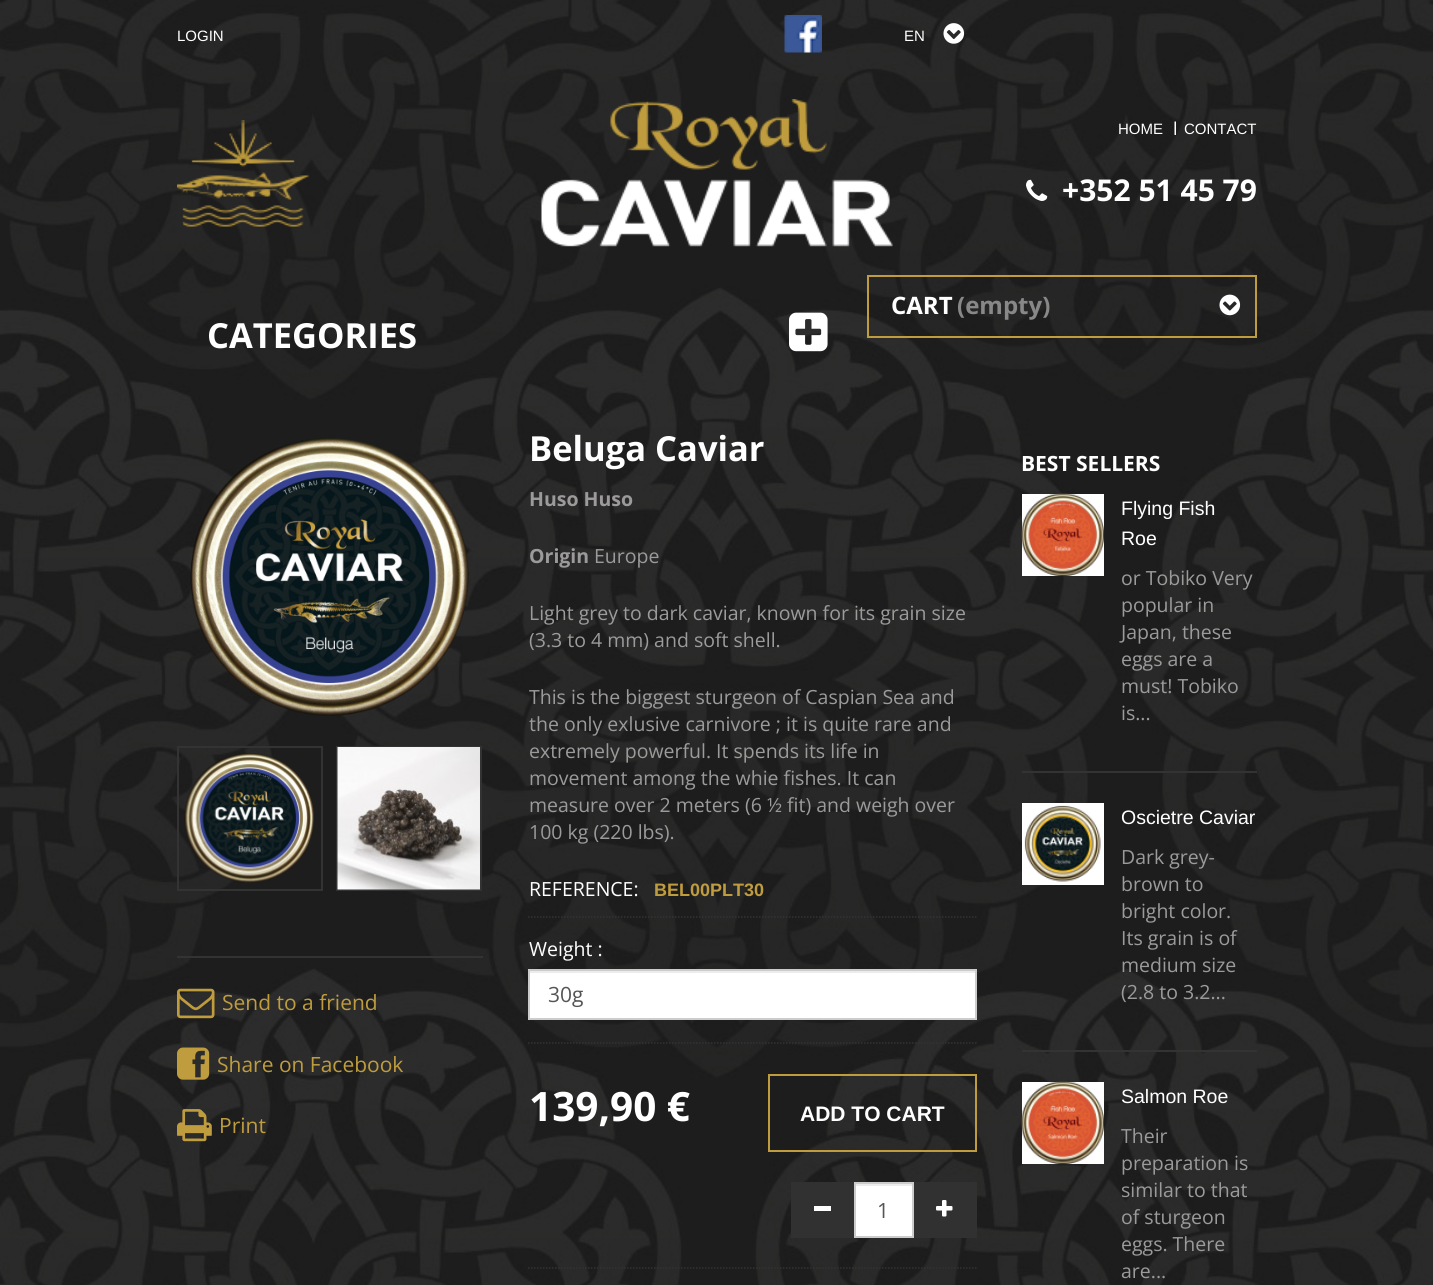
import math
import cairocffi as cairo

surface = cairo.ImageSurface(cairo.FORMAT_RGB24, 1433, 1285)
cr = cairo.Context(surface)
options = cairo.FontOptions()
options.set_hint_metrics(cairo.HINT_METRICS_OFF)
options.set_hint_style(cairo.HINT_STYLE_NONE)
cr.set_font_options(options)
cr.set_miter_limit(4)


def use_color(code):
    cr.set_source_rgb(*(v / 255 for v in bytes.fromhex(code[-6:])))


def picture(path, x, y, w, h):
    cr.save()
    cr.set_source_surface(cairo.ImageSurface.create_from_png(path), x, y)
    cr.rectangle(x, y, w, h)
    cr.fill()
    cr.restore()


use_color("#ffffff")
cr.paint()
picture("img1.png", 0, 0, 1433, 1285)
cr.select_font_face("Liberation Sans")
cr.set_font_size(15)
use_color("#ffffff")
cr.move_to(177, 41)
cr.show_text("LOGIN")
picture("img2.png", 784, 15, 38, 38)
cr.move_to(904, 41)
cr.show_text("EN")
picture("img3.png", 943, 23, 22, 21)
picture("img4.png", 177, 120, 132, 107)
picture("img5.png", 541, 99, 352, 148)
cr.move_to(1118, 134)
cr.show_text("HOME")
picture("img6.png", 1174, 121, 2, 14)
cr.move_to(1184, 134)
cr.show_text("CONTACT")
picture("img7.png", 1026, 179, 22, 22)
cr.select_font_face("Open Sans", cairo.FONT_SLANT_NORMAL, cairo.FONT_WEIGHT_BOLD)
cr.set_font_size(30)
cr.move_to(1062, 201)
cr.show_text("+352 51 45 79")
cr.rectangle(868, 276, 388, 61)
use_color("#bf9c3d")
cr.stroke()
cr.set_font_size(24)
use_color("#ffffff")
cr.move_to(891, 314)
cr.show_text("CART")
use_color("#888888")
cr.move_to(957, 314)
cr.show_text("(empty)")
picture("img8.png", 1219, 294, 22, 22)
cr.set_font_size(34.5)
use_color("#ffffff")
cr.move_to(207, 348)
cr.show_text("CATEGORIES")
picture("img9.png", 789, 312, 39, 40)
picture("img10.png", 190, 438, 279, 278)
cr.rectangle(178, 747, 144, 143)
use_color("#333333")
cr.stroke()
picture("img11.png", 184, 753, 130, 130)
cr.rectangle(337, 747, 144, 143)
cr.stroke()
picture("img12.png", 337, 747, 143, 143)
cr.rectangle(177, 956, 306, 2)
cr.fill()
picture("img13.png", 177, 988, 38, 31)
cr.select_font_face("Open Sans")
cr.set_font_size(21)
use_color("#bf9c3d")
cr.move_to(222, 1010)
cr.show_text("Send to a friend")
picture("img14.png", 177, 1047, 33, 33)
cr.move_to(217, 1072)
cr.show_text("Share on Facebook")
picture("img15.png", 177, 1109, 35, 33)
cr.move_to(219, 1133)
cr.show_text("Print")
cr.select_font_face("Open Sans", cairo.FONT_SLANT_NORMAL, cairo.FONT_WEIGHT_BOLD)
cr.set_font_size(34.5)
use_color("#ffffff")
cr.move_to(529, 461)
cr.show_text("Beluga Caviar")
cr.set_font_size(19.5)
use_color("#9c9a9a")
cr.move_to(529, 506)
cr.show_text("Huso Huso")
cr.move_to(529, 563)
cr.show_text("Origin")
cr.select_font_face("Open Sans")
cr.move_to(594, 563)
cr.show_text("Europe")
cr.move_to(529, 620)
cr.show_text("Light grey to dark caviar, known for its grain size")
cr.move_to(529, 647)
cr.show_text("(3.3 to 4 mm) and soft shell.")
cr.move_to(529, 704)
cr.show_text("This is the biggest sturgeon of Caspian Sea and")
cr.move_to(529, 731)
cr.show_text("the only exlusive carnivore ; it is quite rare and")
cr.move_to(529, 758)
cr.show_text("extremely powerful. It spends its life in")
cr.move_to(529, 785)
cr.show_text("movement among the whie fishes. It can")
cr.move_to(529, 812)
cr.show_text("measure over 2 meters (6 ½ fit) and weigh over")
cr.move_to(529, 839)
cr.show_text("100 kg (220 lbs).")
use_color("#ffffff")
cr.move_to(529, 896)
cr.show_text("REFERENCE:")
cr.select_font_face("Liberation Sans", cairo.FONT_SLANT_NORMAL, cairo.FONT_WEIGHT_BOLD)
cr.set_font_size(18)
use_color("#bf9c3d")
cr.move_to(654, 896)
cr.show_text("BEL00PLT30")
cr.new_path()
cr.move_to(528, 917)
cr.line_to(976.5, 917)
use_color("#333333")
cr.set_line_width(1.5)
cr.set_dash([1.5, 1.5])
cr.stroke()
cr.select_font_face("Open Sans")
cr.set_font_size(19.5)
use_color("#ffffff")
cr.move_to(529, 956)
cr.show_text("Weight :")
cr.rectangle(530, 973, 445, 45)
cr.fill()
use_color("#ececec")
cr.rectangle(530, 971, 445, 2)
cr.fill()
cr.rectangle(529, 970, 447, 49)
use_color("#cccccc")
cr.set_line_width(2)
cr.set_dash([])
cr.stroke()
cr.set_font_size(21)
use_color("#555555")
cr.move_to(548, 1002)
cr.show_text("30g")
cr.new_path()
cr.move_to(528, 1043)
cr.line_to(976.5, 1043)
use_color("#333333")
cr.set_line_width(1.5)
cr.set_dash([1.5, 1.5])
cr.stroke()
cr.new_path()
cr.move_to(528, 1268)
cr.line_to(976.5, 1268)
cr.stroke()
cr.select_font_face("Open Sans", cairo.FONT_SLANT_NORMAL, cairo.FONT_WEIGHT_BOLD)
cr.set_font_size(40.5)
use_color("#ffffff")
cr.move_to(529, 1121)
cr.show_text("139,90 €")
cr.rectangle(769, 1075, 207, 76)
use_color("#bf9c3d")
cr.set_line_width(2)
cr.set_dash([])
cr.stroke()
cr.select_font_face("Liberation Sans", cairo.FONT_SLANT_NORMAL, cairo.FONT_WEIGHT_BOLD)
cr.set_font_size(21)
use_color("#ffffff")
cr.move_to(800, 1121)
cr.show_text("ADD TO CART")
use_color("#313131")
cr.rectangle(791, 1182, 63, 56)
cr.fill()
use_color("#ffffff")
cr.rectangle(814, 1206, 17, 5)
cr.fill()
cr.rectangle(856, 1186, 56, 50)
cr.fill()
use_color("#ececec")
cr.rectangle(855, 1184, 57, 2)
cr.fill()
cr.rectangle(855, 1183, 58, 54)
use_color("#cccccc")
cr.stroke()
cr.select_font_face("Open Sans")
use_color("#555555")
cr.move_to(877, 1218)
cr.show_text("1")
use_color("#313131")
cr.rectangle(914, 1182, 63, 56)
cr.fill()
picture("img16.png", 936, 1200, 17, 17)
cr.select_font_face("Open Sans", cairo.FONT_SLANT_NORMAL, cairo.FONT_WEIGHT_BOLD)
use_color("#ffffff")
cr.move_to(1021, 471)
cr.show_text("BEST SELLERS")
use_color("#333333")
cr.rectangle(1022, 771, 235, 2)
cr.fill()
use_color("#ffffff")
cr.rectangle(1022, 494, 82, 82)
cr.fill()
picture("img17.png", 1021, 493, 83, 83)
cr.select_font_face("Liberation Sans")
cr.set_font_size(19.5)
cr.move_to(1121, 515)
cr.show_text("Flying Fish")
cr.move_to(1121, 545)
cr.show_text("Roe")
cr.select_font_face("Open Sans")
use_color("#9c9a9a")
cr.move_to(1121, 585)
cr.show_text("or Tobiko Very")
cr.move_to(1121, 612)
cr.show_text("popular in")
cr.move_to(1121, 639)
cr.show_text("Japan, these")
cr.move_to(1121, 666)
cr.show_text("eggs are a")
cr.move_to(1121, 693)
cr.show_text("must! Tobiko")
cr.move_to(1121, 720)
cr.show_text("is...")
use_color("#333333")
cr.rectangle(1022, 1050, 235, 2)
cr.fill()
use_color("#ffffff")
cr.rectangle(1022, 803, 82, 82)
cr.fill()
picture("img18.png", 1024, 805, 77, 77)
cr.select_font_face("Liberation Sans")
cr.move_to(1121, 824)
cr.show_text("Oscietre Caviar")
cr.select_font_face("Open Sans")
use_color("#9c9a9a")
cr.move_to(1121, 864)
cr.show_text("Dark grey-")
cr.move_to(1121, 891)
cr.show_text("brown to")
cr.move_to(1121, 918)
cr.show_text("bright color.")
cr.move_to(1121, 945)
cr.show_text("Its grain is of")
cr.move_to(1121, 972)
cr.show_text("medium size")
cr.move_to(1121, 999)
cr.show_text("(2.8 to 3.2...")
use_color("#ffffff")
cr.rectangle(1022, 1082, 82, 82)
cr.fill()
picture("img19.png", 1021, 1081, 83, 83)
cr.select_font_face("Liberation Sans")
cr.move_to(1121, 1103)
cr.show_text("Salmon Roe")
cr.select_font_face("Open Sans")
use_color("#9c9a9a")
cr.move_to(1121, 1143)
cr.show_text("Their")
cr.move_to(1121, 1170)
cr.show_text("preparation is")
cr.move_to(1121, 1197)
cr.show_text("similar to that")
cr.move_to(1121, 1224)
cr.show_text("of sturgeon")
cr.move_to(1121, 1251)
cr.show_text("eggs. There")
cr.move_to(1121, 1278)
cr.show_text("are...")
surface.write_to_png("result.png")
